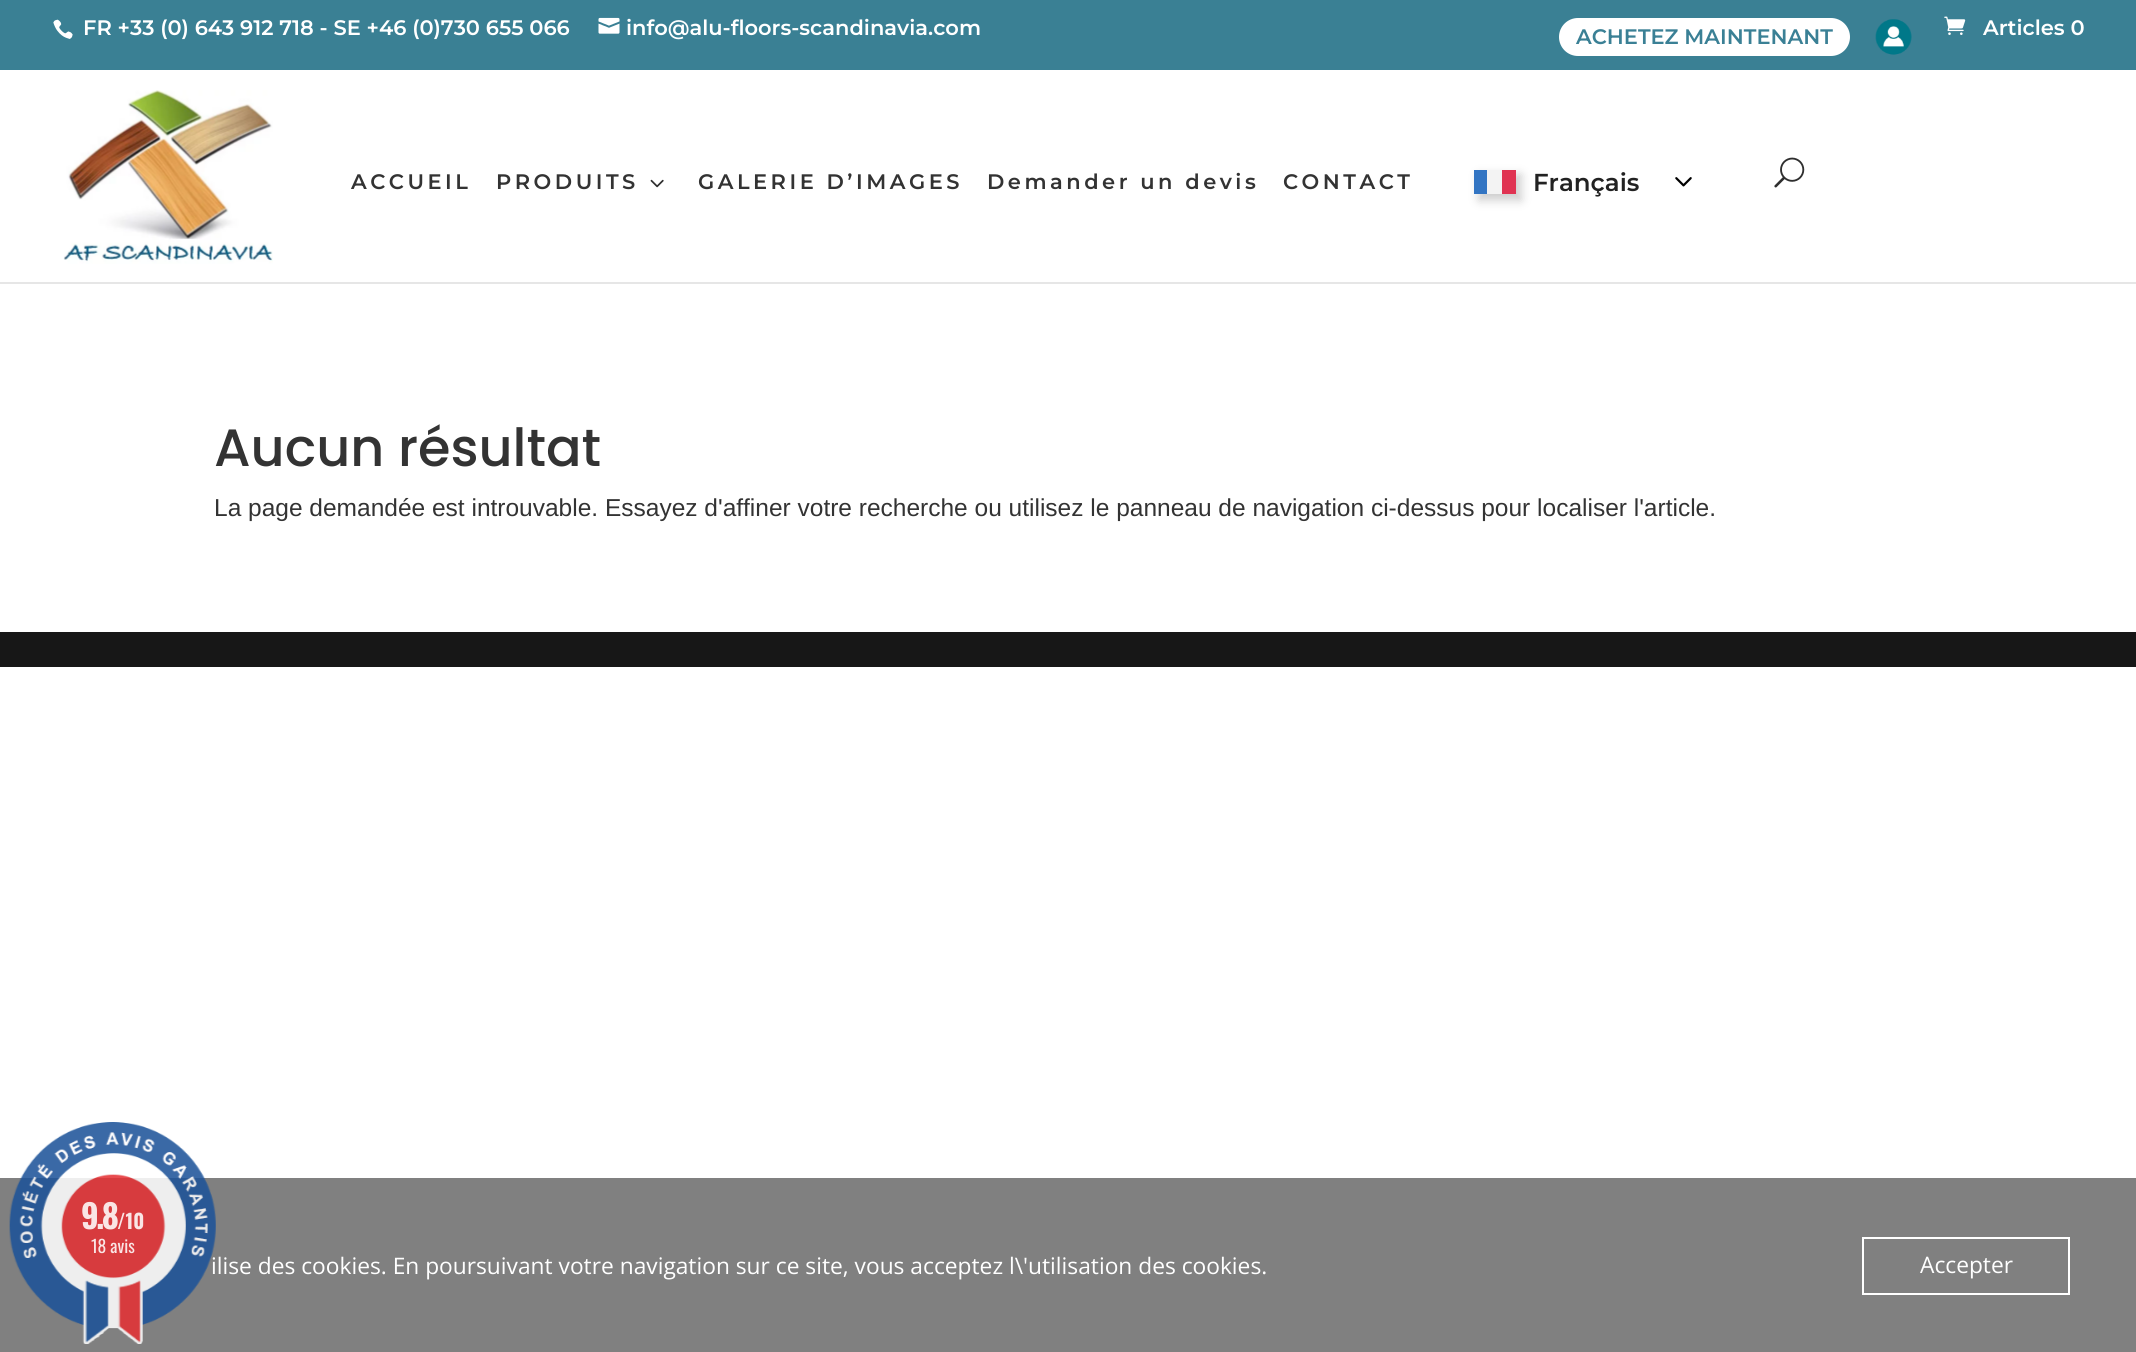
import math
import cairocffi as cairo

surface = cairo.ImageSurface(cairo.FORMAT_RGB24, 2136, 1352)
cr = cairo.Context(surface)
options = cairo.FontOptions()
options.set_hint_metrics(cairo.HINT_METRICS_OFF)
options.set_hint_style(cairo.HINT_STYLE_NONE)
cr.set_font_options(options)
cr.set_miter_limit(4)


def use_color(code):
    cr.set_source_rgb(*(v / 255 for v in bytes.fromhex(code[-6:])))


def spaced_text(x, y, s, letter, word):
    cr.move_to(x, y)
    for ch in s:
        cr.show_text(ch)
        cr.rel_move_to(letter + word * (ch == ' '), 0)


def round_rect(x, y, w, h, r):
    cr.new_sub_path()
    for i, (u, v) in enumerate([(x + w - r, y + h - r), (x + r, y + h - r), (x + r, y + r), (x + w - r, y + r)]):
        cr.arc(u, v, r, i * math.pi / 2, (i + 1) * math.pi / 2)
    cr.close_path()


def shadow(x, y, w, h, r, blur, alpha):
    cr.push_group_with_content(cairo.CONTENT_ALPHA)
    cr.set_operator(cairo.OPERATOR_SOURCE)
    for i in range(15, -16, -2):
        e = blur * i / 6
        if min(w, h) + 2 * e > 0:
            cr.set_source_rgba(0, 0, 0, alpha * math.erfc((i - 1) / 8.5) / 2)
            round_rect(x - e, y - e, w + 2 * e, h + 2 * e, max(0, min(r + e + blur * .6, min(w, h) / 2 + e)))
            cr.fill()
    cr.mask(cr.pop_group())


def picture(path, x, y, w, h):
    cr.save()
    cr.set_source_surface(cairo.ImageSurface.create_from_png(path), x, y)
    cr.rectangle(x, y, w, h)
    cr.fill()
    cr.restore()


use_color("#ffffff")
cr.paint()
use_color("#3a8094")
cr.rectangle(0, 0, 2136, 70)
cr.fill()
picture("img1.png", 53, 19, 20, 20)
cr.select_font_face("Montserrat Thin")
cr.set_font_size(21)
use_color("#ffffff")
cr.move_to(83, 35)
cr.show_text("FR +33 (0) 643 912 718 - SE +46 (0)730 655 066")
picture("img2.png", 598, 17, 22, 17)
cr.move_to(626, 35)
cr.show_text("info@alu-floors-scandinavia.com")
round_rect(1559, 18, 291, 38, 19)
cr.fill()
use_color("#3a8095")
cr.move_to(1576, 44)
cr.show_text("ACHETEZ MAINTENANT")
picture("img3.png", 1875, 19, 37, 36)
picture("img4.png", 1944, 16, 22, 19)
use_color("#ffffff")
cr.move_to(1983, 35)
cr.show_text("Articles 0")
use_color("#e6e6e6")
cr.new_path()
cr.move_to(0, 282)
cr.line_to(0, 284)
cr.line_to(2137, 284)
cr.line_to(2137, 72)
cr.line_to(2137, 282)
cr.close_path()
cr.fill()
picture("img5.png", 63, 90, 210, 174)
use_color("#333333")
spaced_text(351, 189, "ACCUEIL", 3.5, 0)
spaced_text(496, 189, "PRODUITS", 3.5, 0)
picture("img6.png", 650, 179, 14, 9)
spaced_text(698, 189, "GALERIE D’IMAGES", 3.5, 0)
spaced_text(987, 189, "Demander un devis", 3.5, 0)
spaced_text(1283, 189, "CONTACT", 3.5, 0)
use_color("#cccccc")
shadow(1479, 175, 42, 25, 0, 5, 1)
use_color("#f3f3f3")
cr.rectangle(1487, 170, 15, 24)
cr.fill()
use_color("#3375c3")
cr.rectangle(1474, 170, 13, 24)
cr.fill()
use_color("#e03352")
cr.rectangle(1502, 170, 14, 24)
cr.fill()
cr.set_font_size(24.5)
use_color("#222222")
cr.move_to(1533, 191)
cr.show_text("Français")
picture("img7.png", 1675, 177, 17, 10)
picture("img8.png", 1774, 157, 31, 31)
cr.select_font_face("Poppins Medium")
cr.set_font_size(52.5)
use_color("#333333")
cr.move_to(214, 466)
cr.show_text("Aucun résultat")
cr.select_font_face("Liberation Sans")
cr.set_font_size(24.5)
cr.move_to(214, 516)
cr.show_text("La page demandée est introuvable. Essayez d'affiner votre recherche ou utilisez le panneau de navigation ci-dessus pour localiser l'article.")
use_color("#171717")
cr.rectangle(0, 632, 2136, 35)
cr.fill()
use_color("#808080")
cr.rectangle(0, 1178, 2136, 174)
cr.fill()
cr.select_font_face("Open Sans")
cr.set_font_size(22.75)
use_color("#ffffff")
cr.move_to(211, 1274)
cr.show_text("ilise des cookies. En poursuivant votre navigation sur ce site, vous acceptez l\\'utilisation des cookies.")
picture("img9.png", 9, 1122, 207, 222)
cr.select_font_face("Oswald", cairo.FONT_SLANT_NORMAL, cairo.FONT_WEIGHT_BOLD)
cr.set_font_size(33)
use_color("#fae5e5")
spaced_text(81, 1229, "9.8", -2.5, 0)
cr.set_font_size(20)
cr.move_to(117, 1229)
cr.show_text("/10")
cr.select_font_face("Oswald")
cr.set_font_size(17.5)
cr.move_to(91, 1253)
cr.show_text("18 avis")
cr.rectangle(1863, 1238, 206, 56)
use_color("#ffffff")
cr.stroke()
cr.select_font_face("Open Sans")
cr.set_font_size(22.75)
cr.move_to(1920, 1273)
cr.show_text("Accepter")
surface.write_to_png("result.png")
